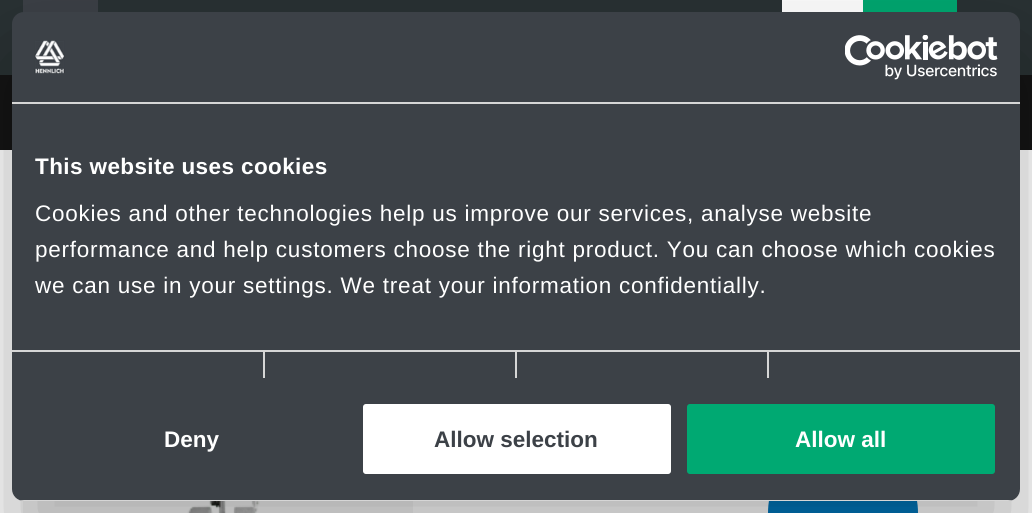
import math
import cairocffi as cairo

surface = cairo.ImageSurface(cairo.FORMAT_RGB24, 1032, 513)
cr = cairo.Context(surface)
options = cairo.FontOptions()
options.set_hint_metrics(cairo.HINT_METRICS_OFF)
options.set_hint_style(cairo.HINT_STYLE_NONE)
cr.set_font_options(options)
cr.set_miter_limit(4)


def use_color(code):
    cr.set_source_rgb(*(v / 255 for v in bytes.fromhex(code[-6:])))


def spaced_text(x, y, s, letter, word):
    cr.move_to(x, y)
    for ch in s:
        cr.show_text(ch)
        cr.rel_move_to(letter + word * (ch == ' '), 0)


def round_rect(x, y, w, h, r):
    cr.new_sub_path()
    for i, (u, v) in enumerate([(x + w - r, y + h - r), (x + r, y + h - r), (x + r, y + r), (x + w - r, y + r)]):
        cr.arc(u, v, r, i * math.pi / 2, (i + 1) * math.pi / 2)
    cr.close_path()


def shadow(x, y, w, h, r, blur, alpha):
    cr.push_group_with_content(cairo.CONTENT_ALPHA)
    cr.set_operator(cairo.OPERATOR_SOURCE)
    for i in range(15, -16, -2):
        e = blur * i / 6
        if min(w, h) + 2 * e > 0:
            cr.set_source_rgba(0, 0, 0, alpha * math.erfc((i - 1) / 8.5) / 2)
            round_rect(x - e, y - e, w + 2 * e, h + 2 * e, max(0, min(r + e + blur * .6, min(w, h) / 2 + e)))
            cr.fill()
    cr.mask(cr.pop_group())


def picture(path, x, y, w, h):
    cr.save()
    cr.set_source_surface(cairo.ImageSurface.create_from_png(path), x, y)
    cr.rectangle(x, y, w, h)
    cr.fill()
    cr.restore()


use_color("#ffffff")
cr.paint()
use_color("#293133")
cr.rectangle(0, 0, 1032, 75)
cr.fill()
picture("img1.png", 23, 0, 75, 13)
use_color("#ffffff")
cr.rectangle(782, 0, 81, 12)
cr.fill()
use_color("#00a870")
cr.rectangle(863, 0, 94, 12)
cr.fill()
use_color("#141414")
cr.rectangle(0, 75, 12, 75)
cr.fill()
cr.rectangle(1020, 75, 12, 75)
cr.fill()
use_color("#f5f5f5")
cr.rectangle(23, 500, 390, 13)
cr.fill()
picture("img2.png", 187, 501, 73, 12)
use_color("#0078bd")
cr.arc(843, 513, 75, 0, 2 * math.pi)
cr.fill()
use_color("#000000")
shadow(12, 60, 1008, 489, 12, 51, 0.3)
use_color("#3c4147")
round_rect(12, 12, 1008, 489, 12)
cr.fill()
use_color("#d6d6d6")
cr.rectangle(12, 102, 1008, 2)
cr.fill()
picture("img3.png", 34, 40, 31, 34)
picture("img4.png", 845, 35, 153, 45)
cr.rectangle(263, 351, 2, 27)
cr.fill()
cr.rectangle(515, 351, 2, 27)
cr.fill()
cr.rectangle(767, 351, 2, 27)
cr.fill()
cr.rectangle(12, 350, 1008, 2)
cr.fill()
cr.select_font_face("Liberation Sans", cairo.FONT_SLANT_NORMAL, cairo.FONT_WEIGHT_BOLD)
cr.set_font_size(22.5)
use_color("#ffffff")
spaced_text(35, 174, "This website uses cookies", 0.4, 0)
cr.select_font_face("Liberation Sans")
spaced_text(35, 221, "Cookies and other technologies help us improve our services, analyse website", 0.75, 0)
spaced_text(35, 257, "performance and help customers choose the right product. You can choose which cookies", 0.75, 0)
spaced_text(35, 293, "we can use in your settings. We treat your information confidentially.", 0.75, 0)
cr.save()
round_rect(12, 12, 1008, 489, 12)
cr.clip()
use_color("#d6d6d6")
cr.rectangle(12, 500, 1008, 1)
cr.fill()
cr.restore()
cr.select_font_face("Liberation Sans", cairo.FONT_SLANT_NORMAL, cairo.FONT_WEIGHT_BOLD)
cr.move_to(164, 447)
cr.show_text("Deny")
round_rect(361.5, 402.5, 311, 73, 4.5)
cr.fill_preserve()
use_color("#3c4147")
cr.set_line_width(3)
cr.stroke()
cr.move_to(434, 447)
cr.show_text("Allow selection")
use_color("#00a972")
round_rect(685.5, 402.5, 311, 73, 4.5)
cr.fill_preserve()
use_color("#3c4147")
cr.stroke()
use_color("#ffffff")
cr.move_to(795, 447)
cr.show_text("Allow all")
surface.write_to_png("result.png")
